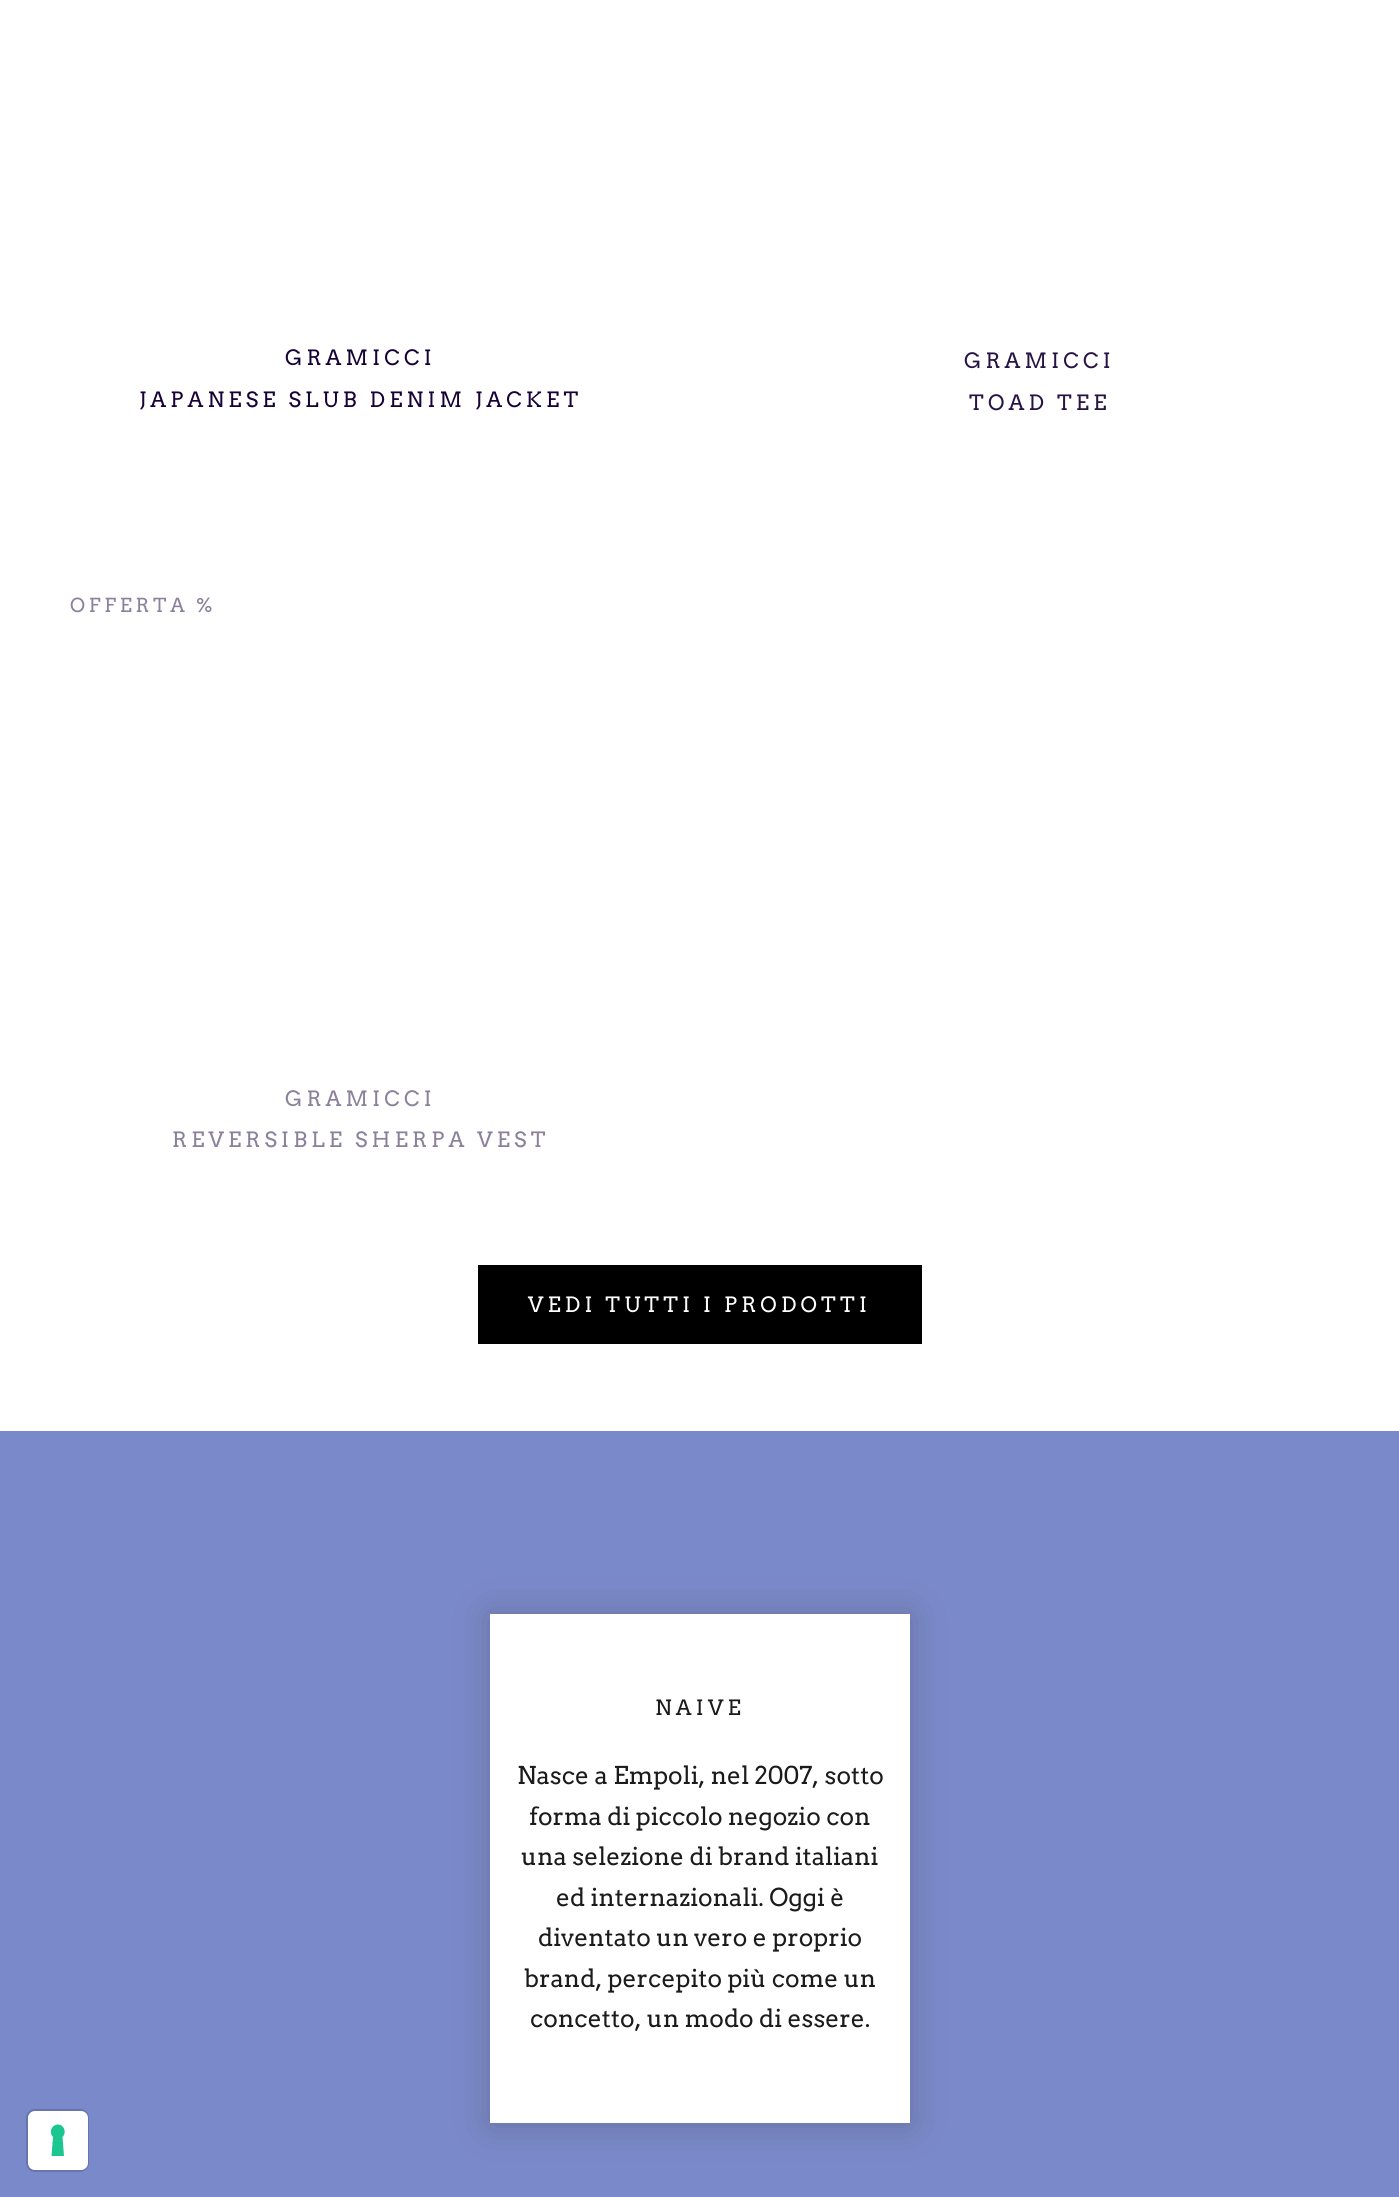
import math
import cairocffi as cairo

surface = cairo.ImageSurface(cairo.FORMAT_RGB24, 1399, 2197)
cr = cairo.Context(surface)
options = cairo.FontOptions()
options.set_hint_metrics(cairo.HINT_METRICS_OFF)
options.set_hint_style(cairo.HINT_STYLE_NONE)
cr.set_font_options(options)
cr.set_miter_limit(4)


def use_color(code):
    cr.set_source_rgb(*(v / 255 for v in bytes.fromhex(code[-6:])))


def spaced_text(x, y, s, letter, word):
    cr.move_to(x, y)
    for ch in s:
        cr.show_text(ch)
        cr.rel_move_to(letter + word * (ch == ' '), 0)


def round_rect(x, y, w, h, r):
    cr.new_sub_path()
    for i, (u, v) in enumerate([(x + w - r, y + h - r), (x + r, y + h - r), (x + r, y + r), (x + w - r, y + r)]):
        cr.arc(u, v, r, i * math.pi / 2, (i + 1) * math.pi / 2)
    cr.close_path()


def shadow(x, y, w, h, r, blur, alpha):
    cr.push_group_with_content(cairo.CONTENT_ALPHA)
    cr.set_operator(cairo.OPERATOR_SOURCE)
    for i in range(15, -16, -2):
        e = blur * i / 6
        if min(w, h) + 2 * e > 0:
            cr.set_source_rgba(0, 0, 0, alpha * math.erfc((i - 1) / 8.5) / 2)
            round_rect(x - e, y - e, w + 2 * e, h + 2 * e, max(0, min(r + e + blur * .6, min(w, h) / 2 + e)))
            cr.fill()
    cr.mask(cr.pop_group())


use_color("#ffffff")
cr.paint()
cr.select_font_face("Arvo")
cr.set_font_size(21)
use_color("#160236")
spaced_text(285, 365, "GRAMICCI", 4.2, 0)
spaced_text(139, 407, "JAPANESE SLUB DENIM JACKET", 4.2, 0)
use_color("#261444")
spaced_text(964, 368, "GRAMICCI", 4.2, 0)
spaced_text(969, 410, "TOAD TEE", 4.2, 0)
cr.set_font_size(19.25)
use_color("#8b819b")
spaced_text(70, 612, "OFFERTA %", 3.75, 0)
cr.set_font_size(21)
spaced_text(285, 1106, "GRAMICCI", 4.2, 0)
spaced_text(172, 1147, "REVERSIBLE SHERPA VEST", 4.2, 0)
cr.rectangle(479, 1266, 442, 77)
use_color("#000000")
cr.stroke()
cr.rectangle(480, 1267, 440, 75)
cr.fill()
use_color("#ffffff")
spaced_text(528, 1312, "VEDI TUTTI I PRODOTTI", 4.2, 0)
use_color("#7a89ca")
cr.rectangle(0, 1431, 1399, 766)
cr.fill()
use_color("#363636")
shadow(490, 1615, 420, 510, 0, 17.5, 0.3)
use_color("#ffffff")
cr.rectangle(490, 1614, 420, 509)
cr.fill()
use_color("#1c1b1b")
spaced_text(655, 1715, "NAIVE", 4.2, 0)
cr.set_font_size(24.5)
cr.move_to(517, 1784)
cr.show_text("Nasce a Empoli, nel 2007, sotto")
cr.move_to(529, 1825)
cr.show_text("forma di piccolo negozio con")
cr.move_to(521, 1865)
cr.show_text("una selezione di brand italiani")
cr.move_to(556, 1906)
cr.show_text("ed internazionali. Oggi è")
cr.move_to(538, 1946)
cr.show_text("diventato un vero e proprio")
cr.move_to(524, 1987)
cr.show_text("brand, percepito più come un")
cr.move_to(530, 2027)
cr.show_text("concetto, un modo di essere.")
round_rect(27, 2110, 61, 61, 8)
use_color("#6874ac")
cr.stroke()
use_color("#ffffff")
round_rect(28, 2111, 60, 59, 7)
cr.fill()
use_color("#1cc691")
cr.set_fill_rule(cairo.FILL_RULE_EVEN_ODD)
cr.new_path()
cr.move_to(58, 2124.5)
cr.curve_to(64, 2124.5, 67, 2132.5, 62.5, 2137)
cr.line_to(64, 2156)
cr.line_to(51.5, 2156)
cr.line_to(53, 2137)
cr.curve_to(48.5, 2132.5, 51.5, 2124.5, 58, 2124.5)
cr.close_path()
cr.fill()
surface.write_to_png("result.png")
